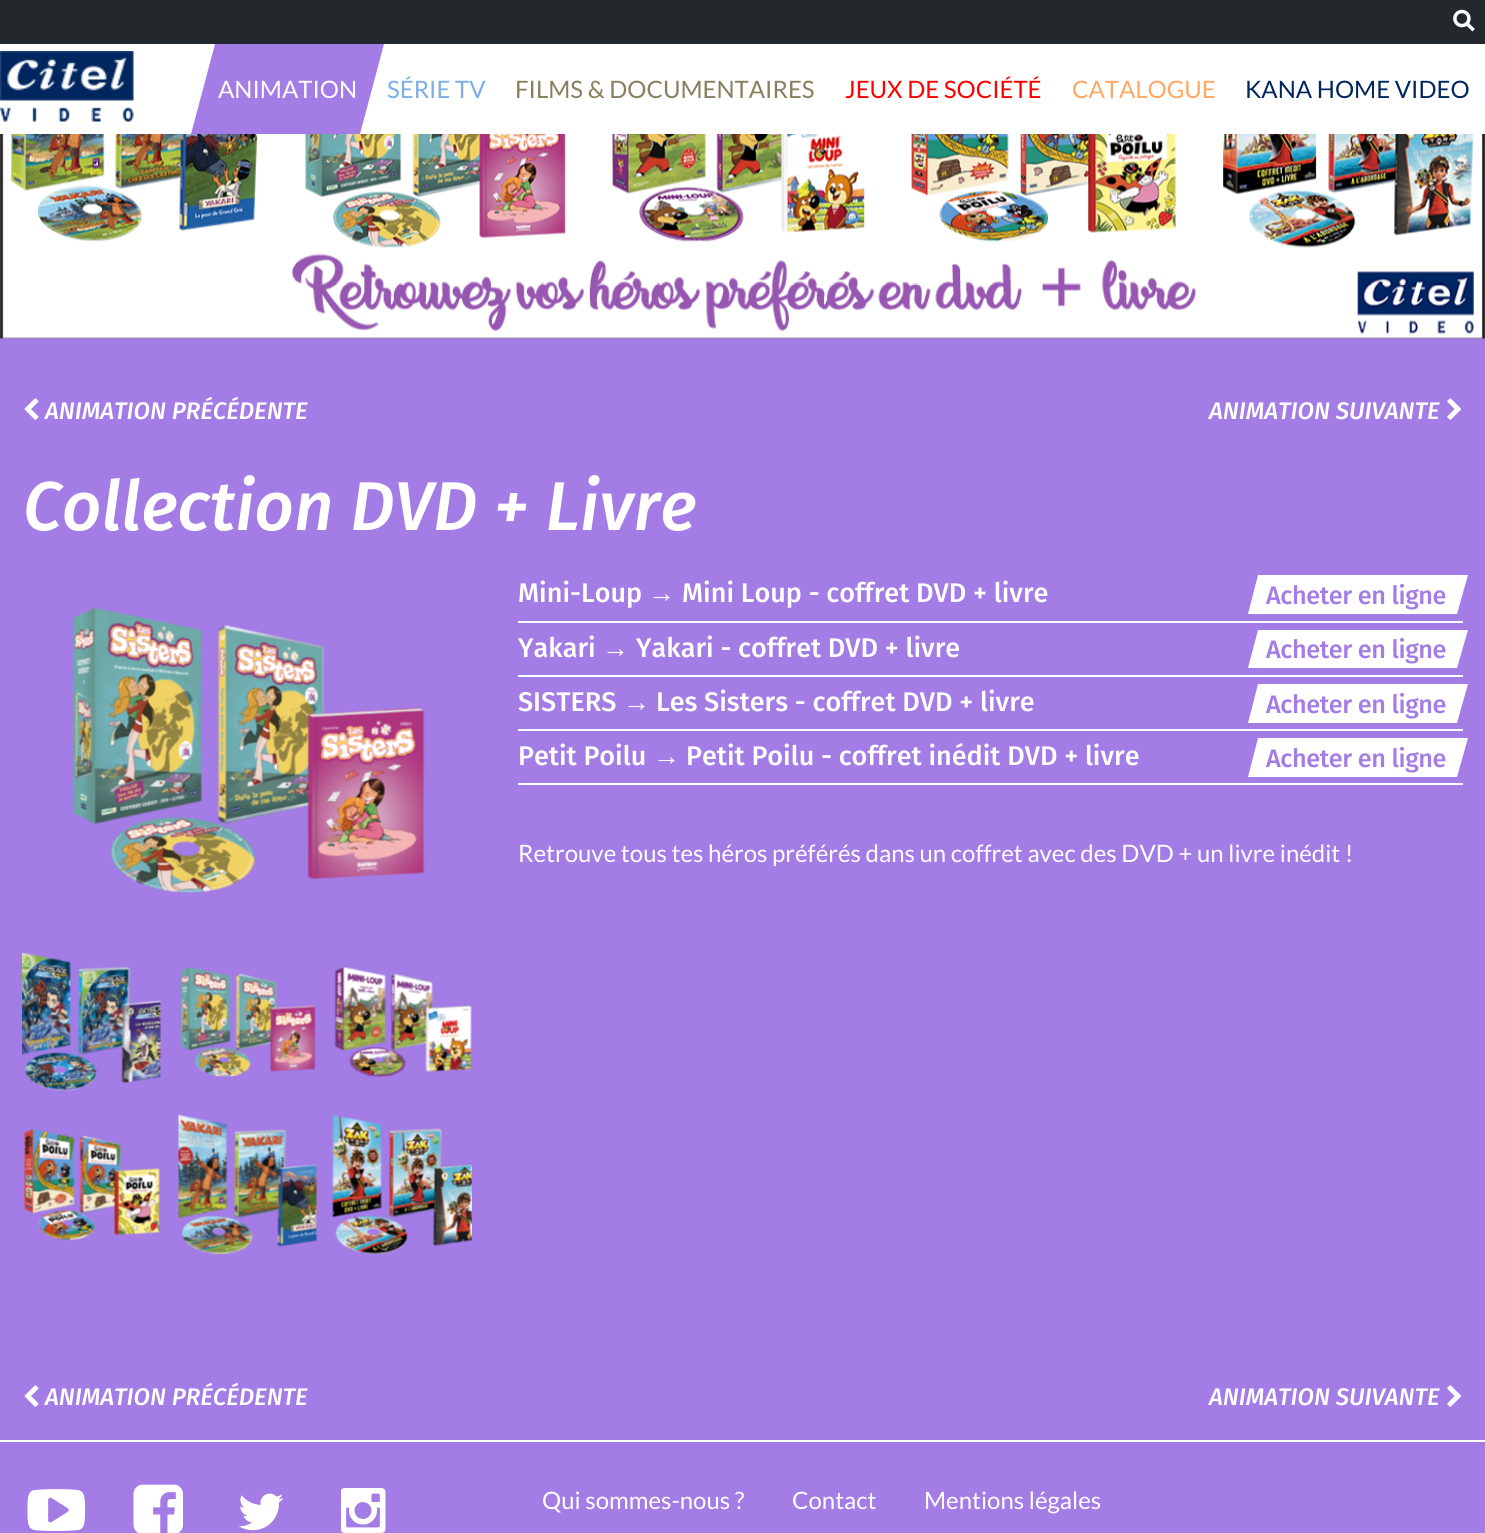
import math
import cairocffi as cairo

surface = cairo.ImageSurface(cairo.FORMAT_RGB24, 1485, 1533)
cr = cairo.Context(surface)
options = cairo.FontOptions()
options.set_hint_metrics(cairo.HINT_METRICS_OFF)
options.set_hint_style(cairo.HINT_STYLE_NONE)
cr.set_font_options(options)
cr.set_miter_limit(4)


def use_color(code):
    cr.set_source_rgb(*(v / 255 for v in bytes.fromhex(code[-6:])))


def spaced_text(x, y, s, letter, word):
    cr.move_to(x, y)
    for ch in s:
        cr.show_text(ch)
        cr.rel_move_to(letter + word * (ch == ' '), 0)


def picture(path, x, y, w, h):
    cr.save()
    cr.set_source_surface(cairo.ImageSurface.create_from_png(path), x, y)
    cr.rectangle(x, y, w, h)
    cr.fill()
    cr.restore()


use_color("#a37ce6")
cr.paint()
use_color("#23282d")
cr.rectangle(0, 0, 1485, 44)
cr.fill()
picture("img1.png", 1453, 9, 22, 23)
use_color("#ffffff")
cr.rectangle(0, 44, 1485, 90)
cr.fill()
picture("img2.png", 0, 51, 134, 71)
use_color("#a37ce6")
cr.new_path()
cr.move_to(215, 44)
cr.line_to(384, 44)
cr.line_to(360, 134)
cr.line_to(191, 134)
cr.close_path()
cr.fill()
cr.select_font_face("Lato")
cr.set_font_size(24)
use_color("#ffffff")
cr.move_to(218, 98)
cr.show_text("ANIMATION")
use_color("#7cade6")
cr.move_to(387, 98)
cr.show_text("SÉRIE TV")
use_color("#87805f")
cr.move_to(515, 98)
cr.show_text("FILMS & DOCUMENTAIRES")
use_color("#ff0000")
cr.move_to(845, 98)
cr.show_text("JEUX DE SOCIÉTÉ")
use_color("#ffa866")
cr.move_to(1072, 98)
cr.show_text("CATALOGUE")
use_color("#00265f")
cr.move_to(1245, 98)
cr.show_text("KANA HOME VIDEO")
picture("img3.png", 0, 134, 1485, 205)
picture("img4.png", 24, 398, 15, 22)
cr.select_font_face("Fira Sans Medium", cairo.FONT_SLANT_ITALIC)
use_color("#ffffff")
cr.move_to(45, 419)
cr.show_text("ANIMATION PRÉCÉDENTE")
cr.move_to(1209, 419)
cr.show_text("ANIMATION SUIVANTE")
picture("img5.png", 1447, 398, 14, 22)
cr.set_font_size(69)
cr.move_to(23, 530)
cr.show_text("Collection DVD + Livre")
picture("img6.png", 72, 607, 353, 286)
picture("img7.png", 22, 952, 139, 139)
picture("img8.png", 180, 967, 136, 110)
picture("img9.png", 334, 966, 138, 112)
picture("img10.png", 23, 1128, 137, 113)
picture("img11.png", 178, 1114, 139, 140)
picture("img12.png", 332, 1114, 140, 140)
cr.rectangle(518, 621, 945, 2)
cr.fill()
cr.select_font_face("Fira Sans Medium")
cr.set_font_size(27)
cr.move_to(518, 602)
cr.show_text("Mini-Loup")
cr.select_font_face("Liberation Sans")
cr.move_to(648, 602)
cr.show_text("→")
cr.select_font_face("Fira Sans Medium")
cr.move_to(682, 602)
cr.show_text("Mini Loup - coffret DVD + livre")
cr.new_path()
cr.move_to(1258, 575)
cr.line_to(1468, 575)
cr.line_to(1457, 614)
cr.line_to(1248, 614)
cr.close_path()
cr.fill()
cr.set_font_size(25.25)
use_color("#a37ce6")
spaced_text(1266, 604, "Acheter en ligne", -0.4, 0)
use_color("#ffffff")
cr.rectangle(518, 675, 945, 2)
cr.fill()
cr.set_font_size(27)
cr.move_to(518, 657)
cr.show_text("Yakari")
cr.select_font_face("Liberation Sans")
cr.move_to(602, 657)
cr.show_text("→")
cr.select_font_face("Fira Sans Medium")
cr.move_to(636, 657)
cr.show_text("Yakari - coffret DVD + livre")
cr.new_path()
cr.move_to(1258, 630)
cr.line_to(1468, 630)
cr.line_to(1457, 668)
cr.line_to(1248, 668)
cr.close_path()
cr.fill()
cr.set_font_size(25.25)
use_color("#a37ce6")
spaced_text(1266, 658, "Acheter en ligne", -0.4, 0)
use_color("#ffffff")
cr.rectangle(518, 729, 945, 2)
cr.fill()
cr.set_font_size(27)
cr.move_to(518, 711)
cr.show_text("SISTERS")
cr.select_font_face("Liberation Sans")
cr.move_to(623, 711)
cr.show_text("→")
cr.select_font_face("Fira Sans Medium")
cr.move_to(656, 711)
cr.show_text("Les Sisters - coffret DVD + livre")
cr.new_path()
cr.move_to(1258, 684)
cr.line_to(1468, 684)
cr.line_to(1457, 723)
cr.line_to(1248, 723)
cr.close_path()
cr.fill()
cr.set_font_size(25.25)
use_color("#a37ce6")
spaced_text(1266, 713, "Acheter en ligne", -0.4, 0)
use_color("#ffffff")
cr.rectangle(518, 783, 945, 2)
cr.fill()
cr.set_font_size(27)
cr.move_to(518, 765)
cr.show_text("Petit Poilu")
cr.select_font_face("Liberation Sans")
cr.move_to(653, 765)
cr.show_text("→")
cr.select_font_face("Fira Sans Medium")
cr.move_to(686, 765)
cr.show_text("Petit Poilu - coffret inédit DVD + livre")
cr.new_path()
cr.move_to(1258, 738)
cr.line_to(1468, 738)
cr.line_to(1457, 777)
cr.line_to(1248, 777)
cr.close_path()
cr.fill()
cr.set_font_size(25.25)
use_color("#a37ce6")
spaced_text(1266, 767, "Acheter en ligne", -0.4, 0)
cr.select_font_face("Lato")
cr.set_font_size(24)
use_color("#ffffff")
cr.move_to(518, 862)
cr.show_text("Retrouve tous tes héros préférés dans un coffret avec des DVD + un livre inédit !")
picture("img4.png", 24, 1385, 15, 22)
cr.select_font_face("Fira Sans Medium", cairo.FONT_SLANT_ITALIC)
cr.move_to(45, 1405)
cr.show_text("ANIMATION PRÉCÉDENTE")
cr.move_to(1209, 1405)
cr.show_text("ANIMATION SUIVANTE")
picture("img5.png", 1447, 1385, 14, 22)
cr.rectangle(0, 1440, 1485, 2)
cr.fill()
picture("img13.png", 27, 1489, 59, 42)
picture("img14.png", 133, 1484, 50, 49)
picture("img15.png", 239, 1493, 45, 38)
picture("img16.png", 341, 1488, 45, 45)
cr.select_font_face("Lato")
cr.move_to(542, 1509)
cr.show_text("Qui sommes-nous ?")
cr.move_to(792, 1509)
cr.show_text("Contact")
cr.move_to(924, 1509)
cr.show_text("Mentions légales")
surface.write_to_png("result.png")
